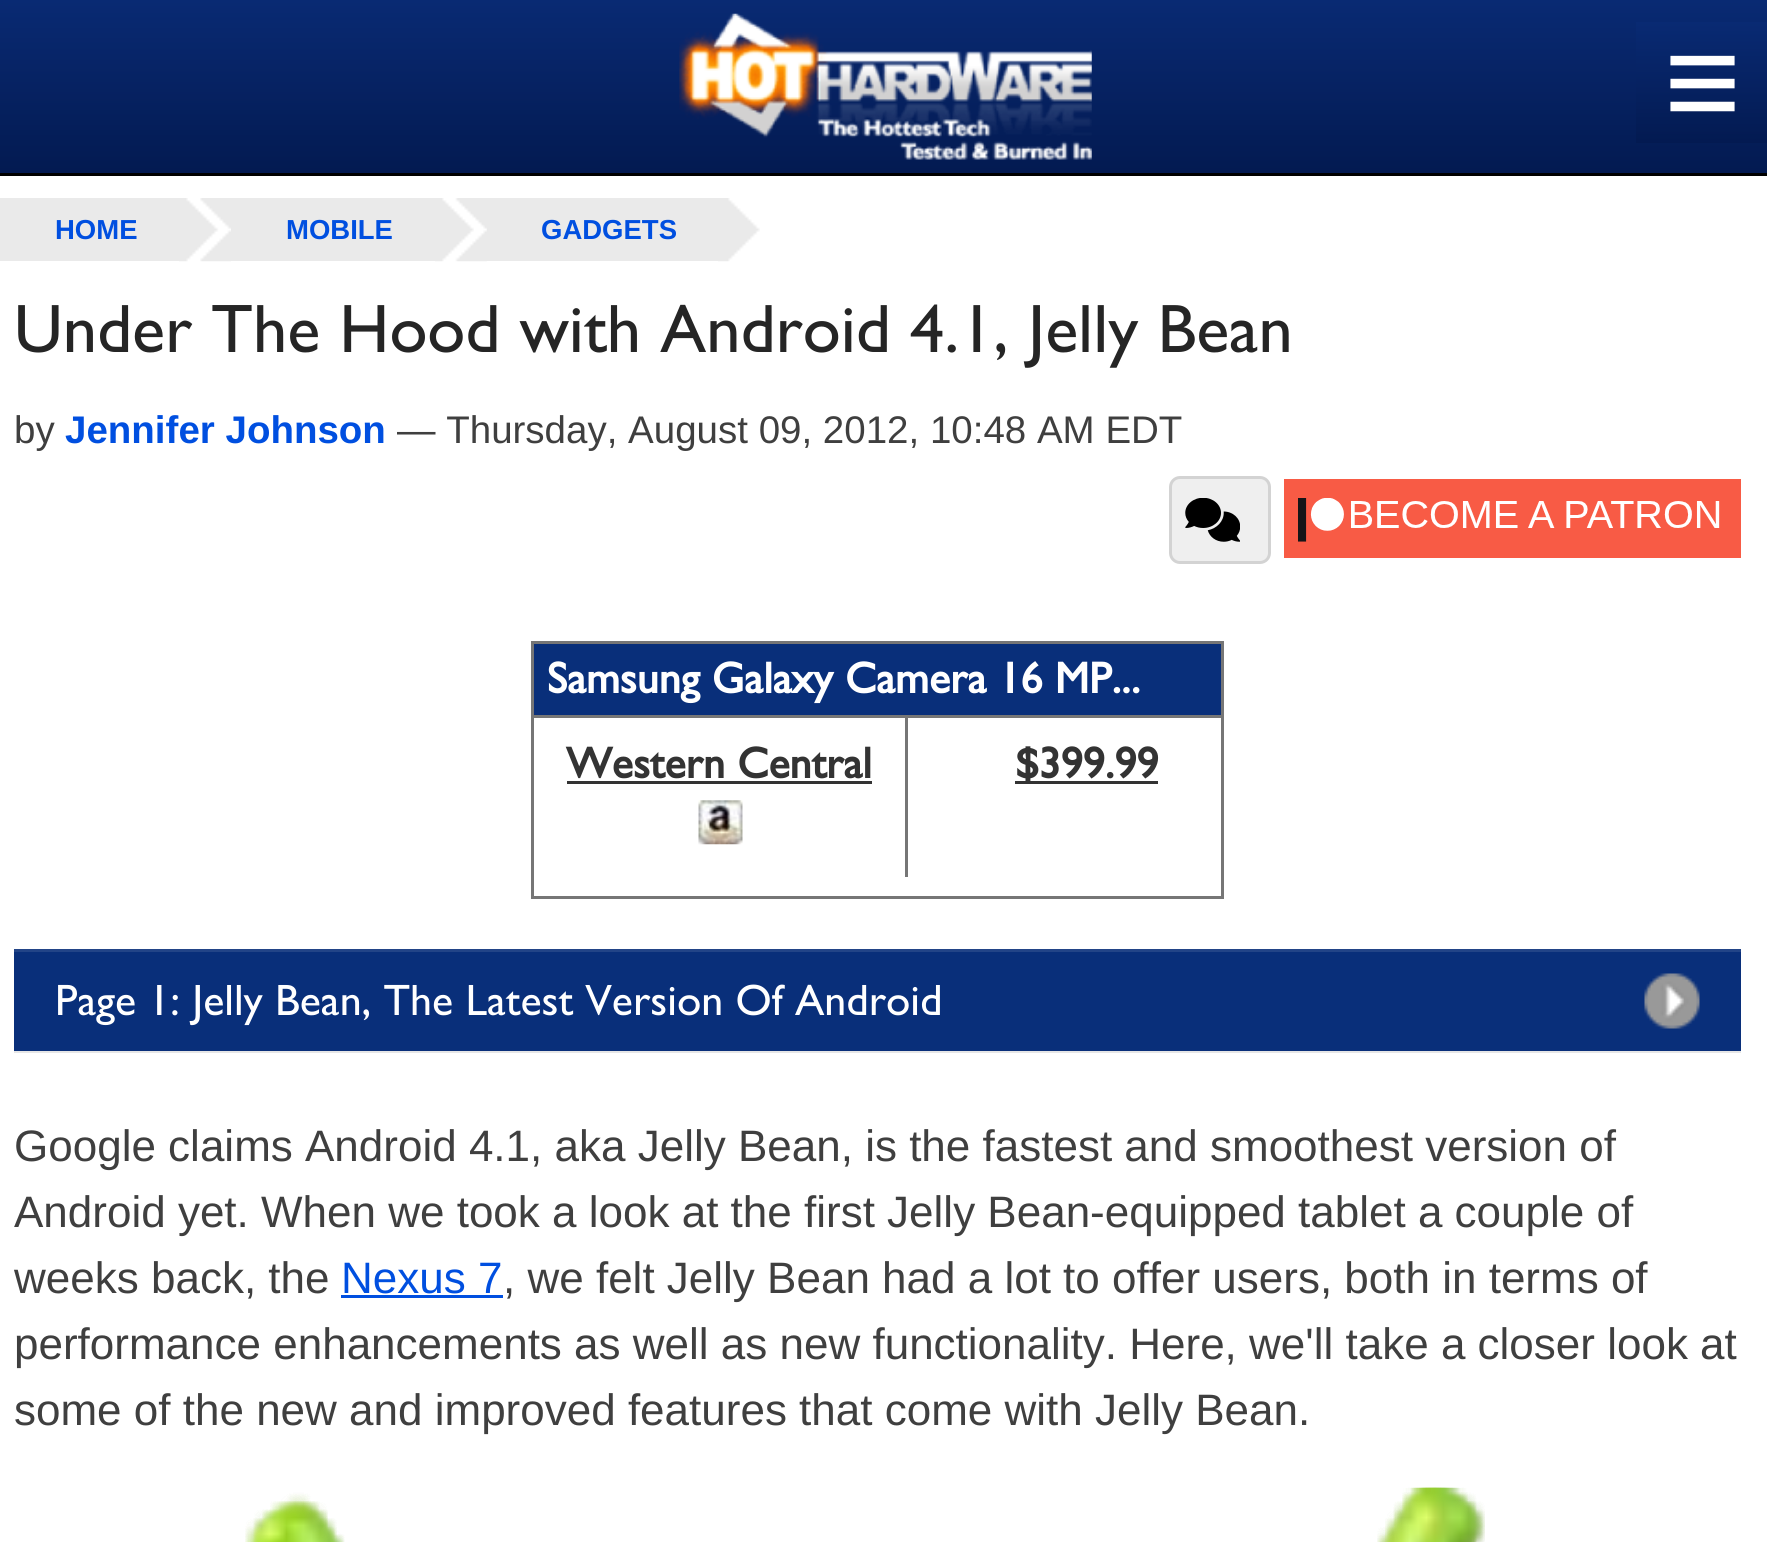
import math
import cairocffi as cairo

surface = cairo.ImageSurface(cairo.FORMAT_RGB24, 1767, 1542)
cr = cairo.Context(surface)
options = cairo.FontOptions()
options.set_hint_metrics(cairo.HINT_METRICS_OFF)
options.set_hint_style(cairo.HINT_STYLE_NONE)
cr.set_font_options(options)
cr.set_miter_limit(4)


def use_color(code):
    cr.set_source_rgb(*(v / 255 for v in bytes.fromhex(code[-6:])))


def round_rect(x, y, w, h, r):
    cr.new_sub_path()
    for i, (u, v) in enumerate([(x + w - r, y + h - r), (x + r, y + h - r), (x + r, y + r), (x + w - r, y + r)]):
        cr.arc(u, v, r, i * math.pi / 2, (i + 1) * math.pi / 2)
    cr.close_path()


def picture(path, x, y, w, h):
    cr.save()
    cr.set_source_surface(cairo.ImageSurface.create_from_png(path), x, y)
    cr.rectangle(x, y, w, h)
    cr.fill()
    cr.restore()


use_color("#ffffff")
cr.paint()
gradient = cairo.LinearGradient(884, 0, 884, 173)
gradient.add_color_stop_rgba(0, 0.035, 0.165, 0.451, 1)
gradient.add_color_stop_rgba(1, 0.012, 0.102, 0.318, 1)
cr.set_source(gradient)
cr.rectangle(0, 0, 1767, 173)
cr.fill()
use_color("#000000")
cr.rectangle(0, 173, 1767, 3)
cr.fill()
picture("img1.png", 679, 13, 413, 147)
gradient = cairo.LinearGradient(1702, 22, 1702, 143)
gradient.add_color_stop_rgba(0, 0.035, 0.165, 0.451, 1)
gradient.add_color_stop_rgba(1, 0.012, 0.102, 0.318, 1)
cr.set_source(gradient)
cr.rectangle(1636, 22, 131, 121)
cr.fill()
cr.select_font_face("Liberation Sans")
cr.set_font_size(132)
use_color("#ffffff")
cr.move_to(1664, 127)
cr.show_text("≡")
use_color("#eaeaea")
cr.rectangle(0, 198, 179, 63)
cr.fill()
picture("img2.png", 179, 198, 52, 64)
cr.select_font_face("Liberation Sans", cairo.FONT_SLANT_NORMAL, cairo.FONT_WEIGHT_BOLD)
cr.set_font_size(27.5)
use_color("#004fe0")
cr.move_to(55, 239)
cr.show_text("HOME")
use_color("#eaeaea")
cr.rectangle(231, 198, 487, 63)
cr.fill()
picture("img3.png", 435, 198, 52, 64)
use_color("#004fe0")
cr.move_to(286, 239)
cr.show_text("MOBILE")
picture("img4.png", 718, 198, 52, 64)
cr.move_to(541, 239)
cr.show_text("GADGETS")
cr.select_font_face("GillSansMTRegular")
cr.set_font_size(68.75)
use_color("#252525")
cr.move_to(14, 352)
cr.show_text("Under The Hood with Android 4.1, Jelly Bean")
cr.select_font_face("Liberation Sans")
cr.set_font_size(38.5)
use_color("#3f3f3f")
cr.move_to(14, 443)
cr.show_text("by")
cr.select_font_face("Liberation Sans", cairo.FONT_SLANT_NORMAL, cairo.FONT_WEIGHT_BOLD)
use_color("#004fe0")
cr.move_to(65, 443)
cr.show_text("Jennifer Johnson")
cr.select_font_face("Liberation Sans")
use_color("#3f3f3f")
cr.move_to(397, 443)
cr.show_text("— Thursday, August 09, 2012, 10:48 AM EDT")
use_color("#efefef")
round_rect(1170.5, 477.5, 99, 85, 9.5)
cr.fill_preserve()
use_color("#d3d3d3")
cr.set_line_width(3)
cr.stroke()
picture("img5.png", 1185, 498, 55, 44)
use_color("#f85b45")
cr.rectangle(1284, 479, 457, 79)
cr.fill()
picture("img6.png", 1298, 498, 422, 44)
cr.rectangle(532.5, 642.5, 690, 255)
use_color("#767676")
cr.stroke()
use_color("#092f7a")
cr.rectangle(534, 644, 687, 71)
cr.fill()
use_color("#767676")
cr.rectangle(534, 715, 687, 3)
cr.fill()
cr.select_font_face("GillSansMTRegular", cairo.FONT_SLANT_NORMAL, cairo.FONT_WEIGHT_BOLD)
cr.set_font_size(44)
use_color("#ffffff")
cr.move_to(547, 693)
cr.show_text("Samsung Galaxy Camera 16 MP...")
use_color("#767676")
cr.rectangle(905, 718, 3, 159)
cr.fill()
use_color("#333333")
cr.move_to(566, 778)
cr.show_text("Western Central")
cr.rectangle(567, 781, 305, 3)
cr.fill()
picture("img7.png", 698, 800, 45, 45)
cr.rectangle(1015, 781, 143, 3)
cr.fill()
cr.move_to(1015, 778)
cr.show_text("$399.99")
cr.set_source_rgba(0, 0, 0, 0.1)
cr.new_path()
cr.move_to(14, 1050)
cr.line_to(14, 1053)
cr.line_to(1741, 1053)
cr.line_to(1741, 952)
cr.line_to(1741, 1050)
cr.close_path()
cr.fill()
use_color("#092f7a")
cr.rectangle(14, 952, 1727, 99)
cr.fill()
use_color("#224487")
cr.rectangle(14, 949, 1727, 3)
cr.fill()
cr.select_font_face("GillSansMTRegular")
use_color("#ffffff")
cr.move_to(55, 1015)
cr.show_text("Page 1: Jelly Bean, The Latest Version Of Android")
picture("img8.png", 1644, 973, 56, 56)
cr.select_font_face("Liberation Sans")
use_color("#3f3f3f")
cr.move_to(14, 1161)
cr.show_text("Google claims Android 4.1, aka Jelly Bean, is the fastest and smoothest version of")
cr.move_to(14, 1227)
cr.show_text("Android yet. When we took a look at the first Jelly Bean-equipped tablet a couple of")
cr.move_to(14, 1293)
cr.show_text("weeks back, the")
use_color("#004fe0")
cr.move_to(341, 1293)
cr.show_text("Nexus 7")
cr.rectangle(341, 1295, 162, 3)
cr.fill()
use_color("#3f3f3f")
cr.move_to(503, 1293)
cr.show_text(", we felt Jelly Bean had a lot to offer users, both in terms of")
cr.move_to(14, 1359)
cr.show_text("performance enhancements as well as new functionality. Here, we'll take a closer look at")
cr.move_to(14, 1425)
cr.show_text("some of the new and improved features that come with Jelly Bean.")
picture("img9.png", 245, 1487, 1240, 55)
picture("img10.png", 245, 1487, 1240, 55)
surface.write_to_png("result.png")
